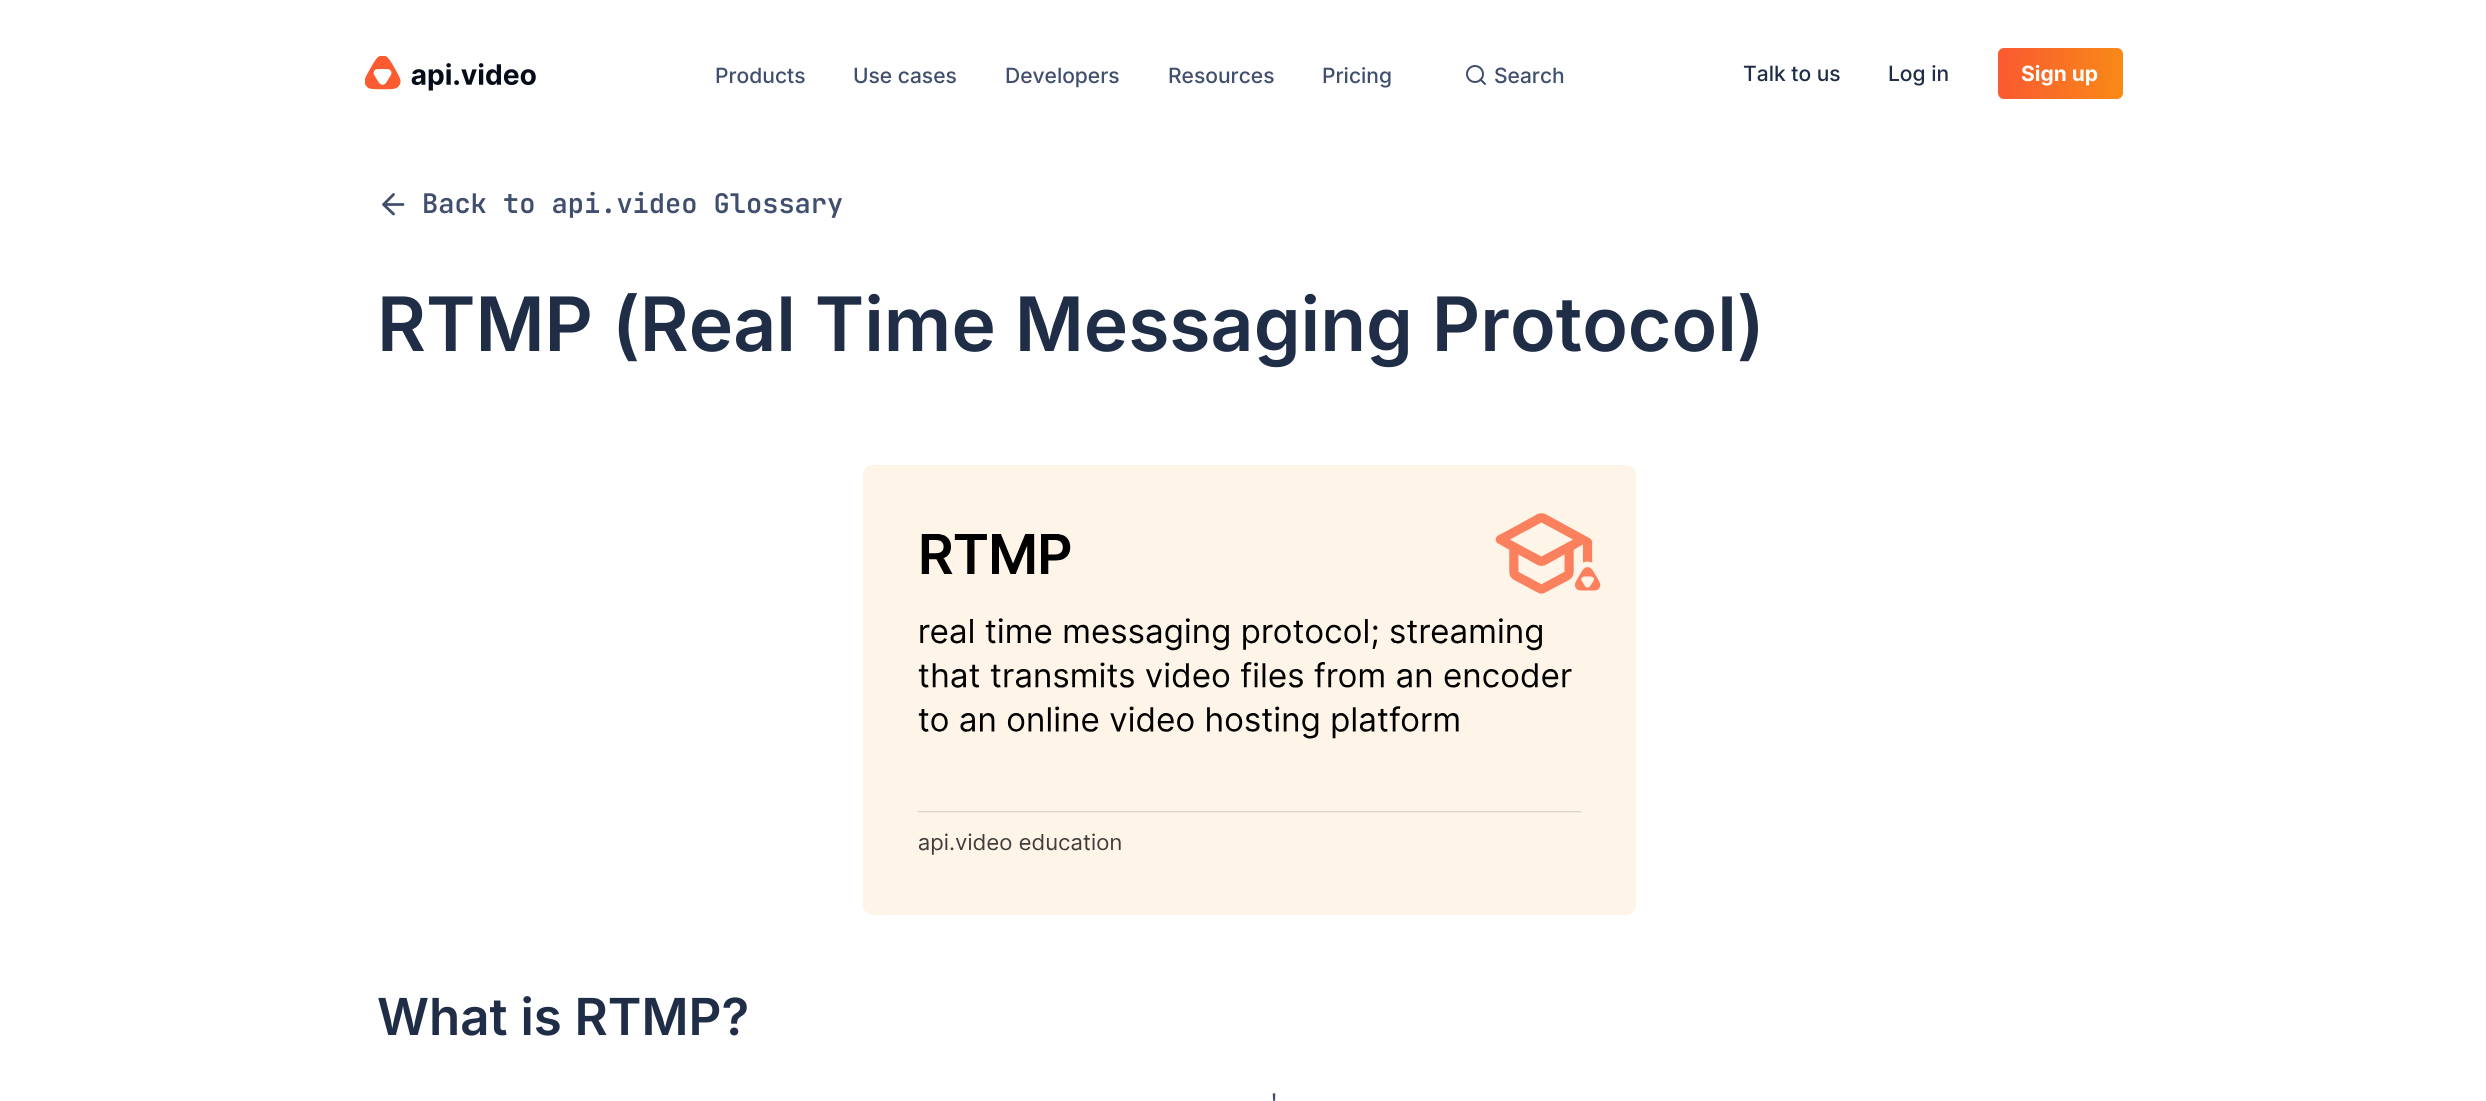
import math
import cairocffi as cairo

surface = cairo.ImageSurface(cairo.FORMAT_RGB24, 2486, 1101)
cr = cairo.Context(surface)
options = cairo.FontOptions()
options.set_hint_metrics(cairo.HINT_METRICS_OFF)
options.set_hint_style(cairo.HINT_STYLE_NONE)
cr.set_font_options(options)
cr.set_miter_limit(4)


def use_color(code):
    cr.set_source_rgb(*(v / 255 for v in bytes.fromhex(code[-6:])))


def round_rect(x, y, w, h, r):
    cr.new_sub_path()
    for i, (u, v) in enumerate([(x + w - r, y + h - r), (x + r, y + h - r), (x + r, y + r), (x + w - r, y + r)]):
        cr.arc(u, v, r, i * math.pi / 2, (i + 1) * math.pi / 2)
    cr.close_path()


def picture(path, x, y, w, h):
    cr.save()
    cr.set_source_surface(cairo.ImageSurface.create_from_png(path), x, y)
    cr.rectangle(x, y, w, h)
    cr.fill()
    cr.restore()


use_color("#ffffff")
cr.paint()
picture("img1.png", 365, 56, 171, 35)
cr.select_font_face("Inter Medium")
cr.set_font_size(21)
use_color("#414f6e")
cr.move_to(715, 83)
cr.show_text("Products")
cr.move_to(853, 83)
cr.show_text("Use cases")
cr.move_to(1005, 83)
cr.show_text("Developers")
cr.move_to(1168, 83)
cr.show_text("Resources")
cr.move_to(1322, 83)
cr.show_text("Pricing")
cr.new_path()
cr.arc(1475, 74, 8, 0, 2 * math.pi)
cr.stroke()
cr.new_path()
cr.move_to(1485, 84)
cr.line_to(1480.5, 79.5)
cr.set_line_cap(cairo.LINE_CAP_ROUND)
cr.set_line_join(cairo.LINE_JOIN_ROUND)
cr.stroke()
cr.move_to(1494, 83)
cr.show_text("Search")
use_color("#202d47")
cr.move_to(1743, 81)
cr.show_text("Talk to us")
cr.move_to(1888, 81)
cr.show_text("Log in")
gradient = cairo.LinearGradient(1997, 71, 2232, 79)
gradient.add_color_stop_rgba(0.03, 0.98, 0.357, 0.188, 1)
gradient.add_color_stop_rgba(1, 0.969, 0.71, 0, 1)
cr.set_source(gradient)
round_rect(1998, 48, 125, 51, 6)
cr.fill()
cr.select_font_face("Inter", cairo.FONT_SLANT_NORMAL, cairo.FONT_WEIGHT_BOLD)
use_color("#ffffff")
cr.move_to(2021, 81)
cr.show_text("Sign up")
cr.new_path()
cr.move_to(403, 204.5)
cr.line_to(383.5, 204.5)
cr.move_to(393.5, 214)
cr.line_to(383.5, 204.5)
cr.line_to(393.5, 194.5)
use_color("#414f6e")
cr.set_line_width(2.8)
cr.stroke()
cr.select_font_face("JetBrains Mono SemiBold")
cr.set_font_size(27)
cr.move_to(422, 213)
cr.show_text("Back to api.video Glossary")
cr.select_font_face("Inter SemiBold")
cr.set_font_size(75)
use_color("#202d47")
cr.move_to(377, 351)
cr.show_text("RTMP (Real Time Messaging Protocol)")
picture("img2.png", 863, 465, 774, 450)
cr.set_font_size(51)
cr.move_to(377, 1035)
cr.show_text("What is RTMP?")
cr.select_font_face("Inter")
cr.set_font_size(27)
use_color("#414f6e")
cr.move_to(1270, 1113)
cr.show_text("'")
surface.write_to_png("result.png")
